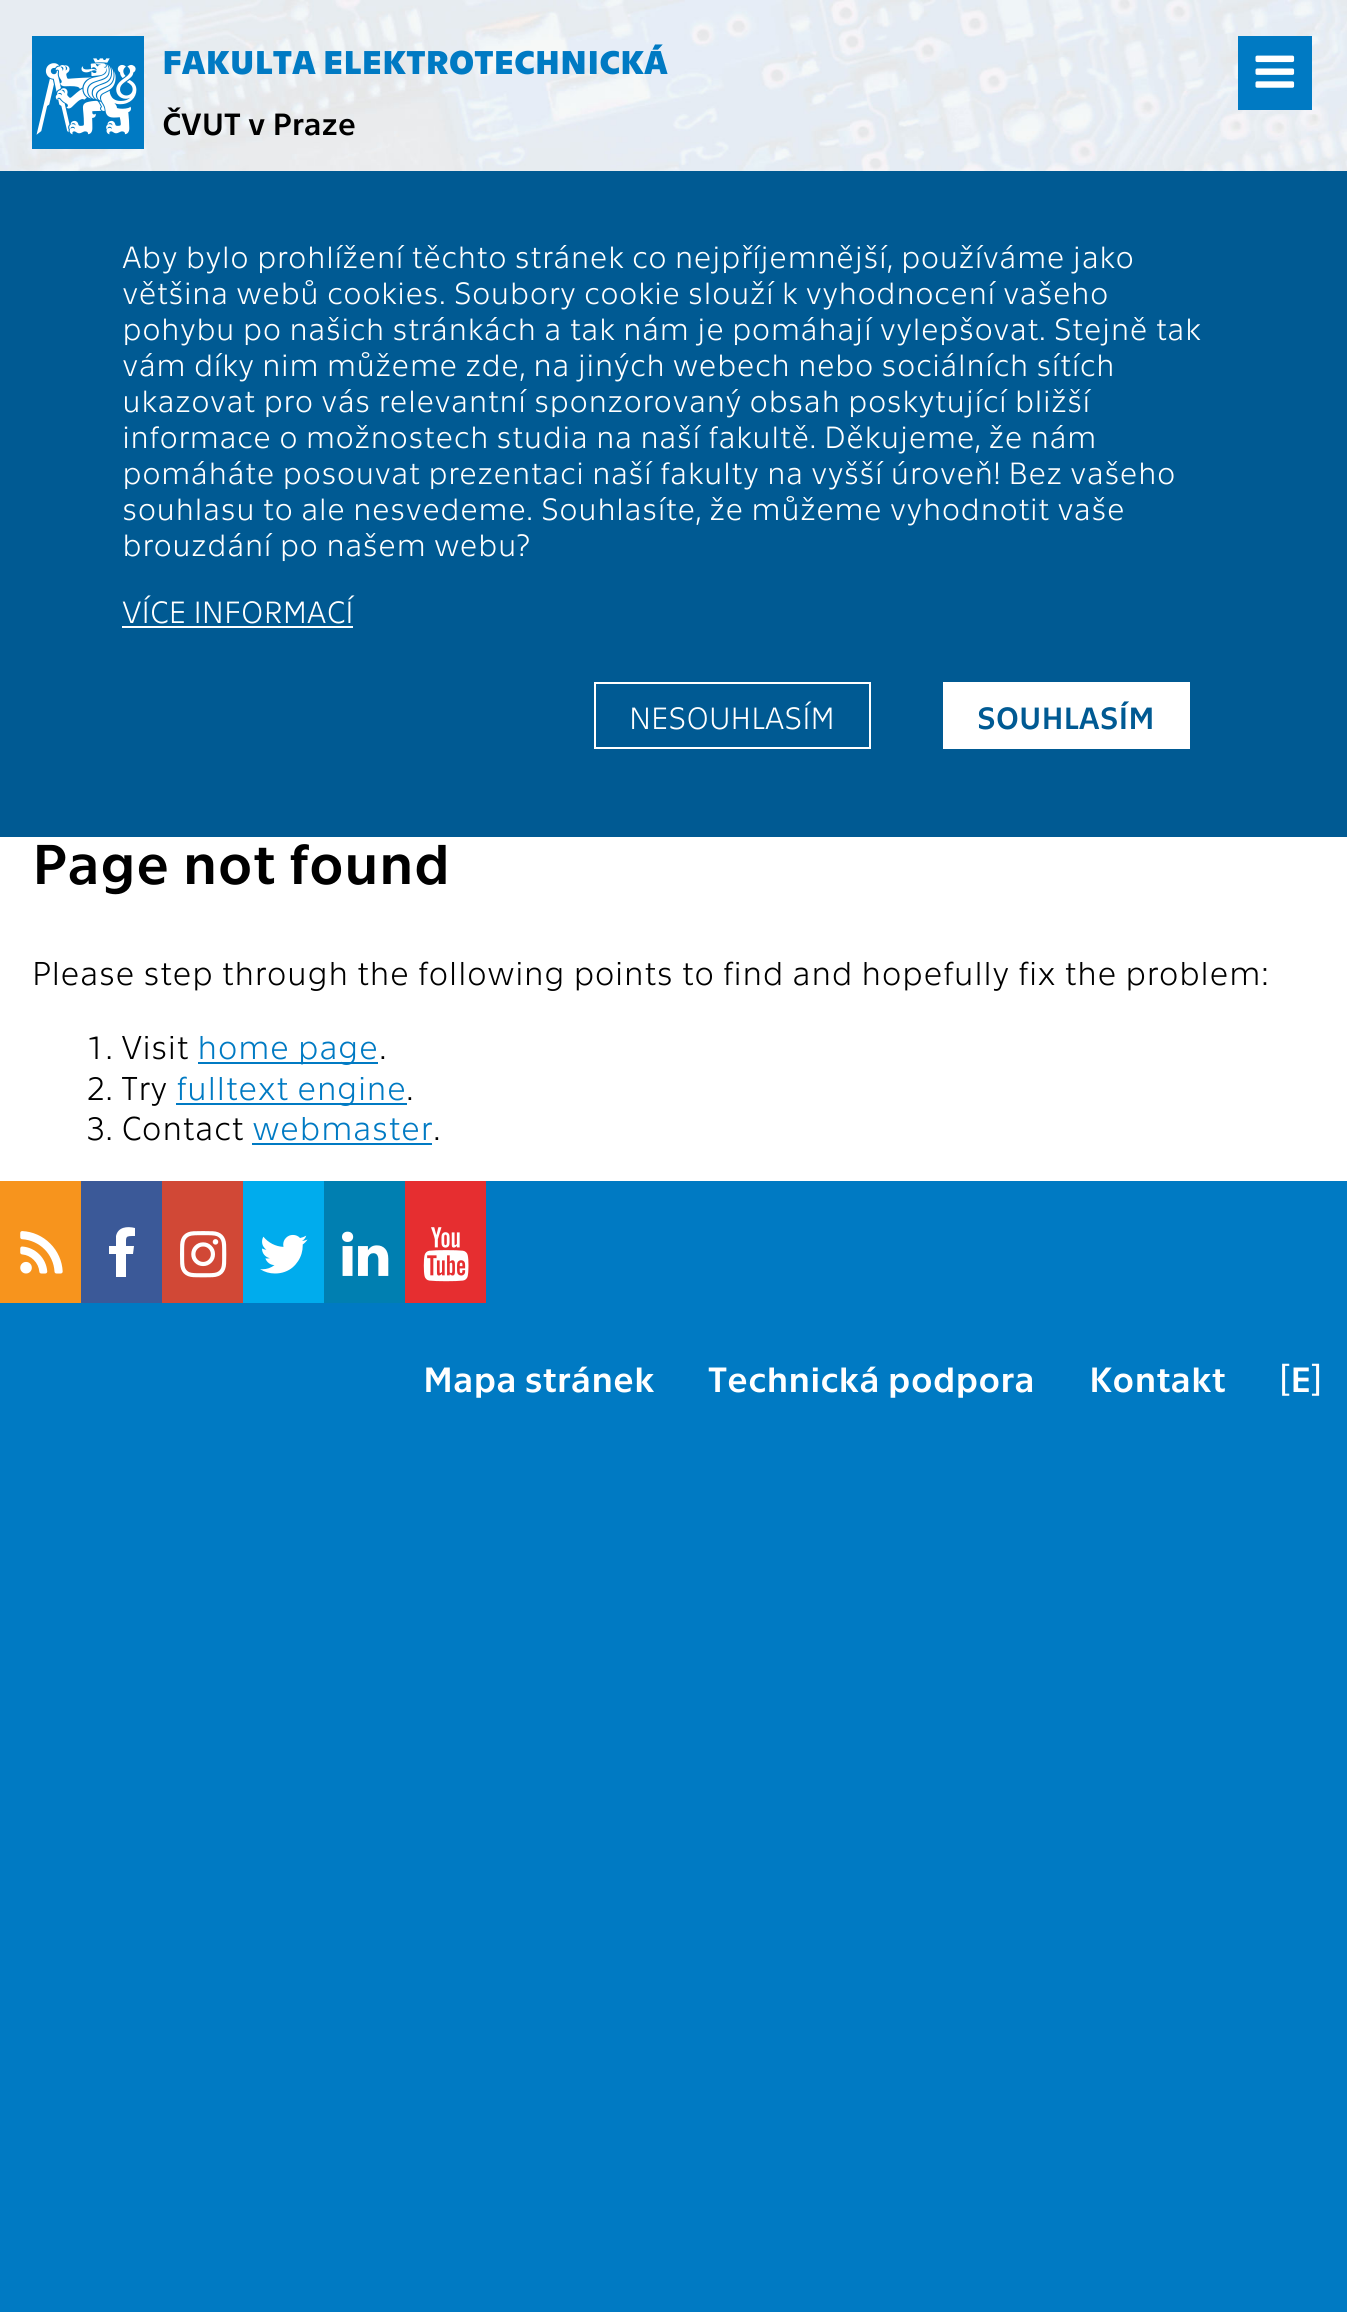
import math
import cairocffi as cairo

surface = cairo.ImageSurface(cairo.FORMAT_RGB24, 1347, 2312)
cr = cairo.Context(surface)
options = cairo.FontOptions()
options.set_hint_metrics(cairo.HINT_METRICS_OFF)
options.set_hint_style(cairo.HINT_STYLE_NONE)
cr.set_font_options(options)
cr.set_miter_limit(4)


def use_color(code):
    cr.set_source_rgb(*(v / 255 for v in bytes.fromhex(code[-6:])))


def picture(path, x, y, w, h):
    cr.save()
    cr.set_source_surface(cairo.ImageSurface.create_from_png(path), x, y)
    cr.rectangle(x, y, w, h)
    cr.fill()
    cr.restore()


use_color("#007ac3")
cr.paint()
picture("img1.png", 0, 0, 1347, 171)
use_color("#007ac3")
cr.rectangle(32, 36, 112, 113)
cr.fill()
picture("img2.png", 36, 58, 101, 77)
cr.select_font_face("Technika", cairo.FONT_SLANT_NORMAL, cairo.FONT_WEIGHT_BOLD)
cr.set_font_size(33.75)
cr.move_to(162, 74)
cr.show_text("FAKULTA ELEKTROTECHNICKÁ")
cr.rectangle(1238, 36, 74, 74)
cr.fill()
picture("img3.png", 1255, 55, 40, 33)
cr.select_font_face("Technika")
cr.set_font_size(31.5)
use_color("#000000")
cr.move_to(162, 135)
cr.show_text("ČVUT v Praze")
use_color("#005a93")
cr.rectangle(0, 171, 1347, 666)
cr.fill()
cr.select_font_face("Technika Light")
use_color("#ffffff")
cr.move_to(122, 268)
cr.show_text("Aby bylo prohlížení těchto stránek co nejpříjemnější, používáme jako")
cr.move_to(122, 304)
cr.show_text("většina webů cookies. Soubory cookie slouží k vyhodnocení vašeho")
cr.move_to(122, 340)
cr.show_text("pohybu po našich stránkách a tak nám je pomáhají vylepšovat. Stejně tak")
cr.move_to(122, 376)
cr.show_text("vám díky nim můžeme zde, na jiných webech nebo sociálních sítích")
cr.move_to(122, 412)
cr.show_text("ukazovat pro vás relevantní sponzorovaný obsah poskytující bližší")
cr.move_to(122, 448)
cr.show_text("informace o možnostech studia na naší fakultě. Děkujeme, že nám")
cr.move_to(122, 484)
cr.show_text("pomáháte posouvat prezentaci naší fakulty na vyšší úroveň! Bez vašeho")
cr.move_to(122, 520)
cr.show_text("souhlasu to ale nesvedeme. Souhlasíte, že můžeme vyhodnotit vaše")
cr.move_to(122, 556)
cr.show_text("brouzdání po našem webu?")
cr.move_to(122, 623)
cr.show_text("VÍCE INFORMACÍ")
cr.rectangle(122, 626, 231, 2)
cr.fill()
cr.rectangle(595, 683, 275, 65)
cr.stroke()
cr.move_to(629, 729)
cr.show_text("NESOUHLASÍM")
cr.rectangle(943, 682, 247, 67)
cr.fill()
cr.select_font_face("Technika")
use_color("#005a93")
cr.move_to(977, 729)
cr.show_text("SOUHLASÍM")
use_color("#ffffff")
cr.rectangle(0, 837, 1347, 344)
cr.fill()
cr.set_font_size(57.5)
use_color("#000000")
cr.move_to(32, 884)
cr.show_text("Page not found")
cr.select_font_face("Technika Light")
cr.set_font_size(33.85)
cr.move_to(32, 985)
cr.show_text("Please step through the following points to find and hopefully fix the problem:")
cr.move_to(86, 1059)
cr.show_text("1. Visit")
use_color("#007ac3")
cr.rectangle(198, 1062, 180, 2)
cr.fill()
cr.move_to(197, 1059)
cr.show_text("home page")
use_color("#000000")
cr.move_to(379, 1059)
cr.show_text(".")
cr.move_to(86, 1100)
cr.show_text("2. Try")
use_color("#007ac3")
cr.rectangle(176, 1103, 231, 2)
cr.fill()
cr.move_to(176, 1100)
cr.show_text("fulltext engine")
use_color("#000000")
cr.move_to(406, 1100)
cr.show_text(".")
cr.move_to(86, 1140)
cr.show_text("3. Contact")
use_color("#007ac3")
cr.move_to(252, 1140)
cr.show_text("webmaster")
cr.rectangle(252, 1143, 180, 2)
cr.fill()
use_color("#000000")
cr.move_to(433, 1140)
cr.show_text(".")
use_color("#f7941d")
cr.rectangle(0, 1181, 81, 122)
cr.fill()
picture("img4.png", 20, 1231, 43, 43)
use_color("#3b5998")
cr.rectangle(81, 1181, 81, 122)
cr.fill()
use_color("#ffffff")
cr.new_path()
cr.move_to(135, 1228)
cr.line_to(135, 1236)
cr.curve_to(125, 1236, 126, 1236, 126, 1246)
cr.line_to(134, 1246)
cr.line_to(133, 1254)
cr.line_to(126, 1254)
cr.line_to(126, 1277)
cr.line_to(116, 1277)
cr.line_to(116, 1254)
cr.line_to(109, 1254)
cr.line_to(109, 1246)
cr.line_to(116, 1246)
cr.line_to(116, 1236)
cr.curve_to(118, 1227, 127, 1226, 135, 1228)
cr.close_path()
cr.fill()
use_color("#d14836")
cr.rectangle(162, 1181, 81, 122)
cr.fill()
picture("img5.png", 180, 1231, 47, 47)
use_color("#00aced")
cr.rectangle(243, 1181, 81, 122)
cr.fill()
picture("img6.png", 260, 1234, 48, 40)
use_color("#007fb1")
cr.rectangle(324, 1181, 81, 122)
cr.fill()
picture("img7.png", 342, 1231, 47, 45)
use_color("#e62e30")
cr.rectangle(405, 1181, 81, 122)
cr.fill()
picture("img8.png", 423, 1227, 46, 55)
cr.select_font_face("Technika")
cr.set_font_size(36)
use_color("#ffffff")
cr.move_to(423, 1392)
cr.show_text("Mapa stránek")
cr.move_to(708, 1392)
cr.show_text("Technická podpora")
cr.move_to(1089, 1392)
cr.show_text("Kontakt")
cr.move_to(1280, 1392)
cr.show_text("[E]")
surface.write_to_png("result.png")
